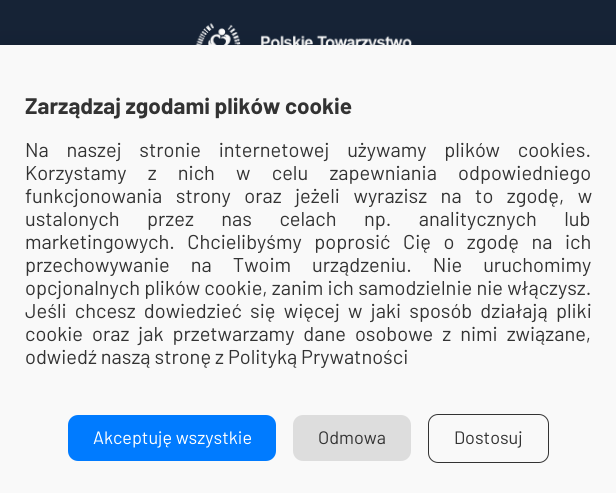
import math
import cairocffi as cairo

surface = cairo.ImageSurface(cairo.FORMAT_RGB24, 616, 493)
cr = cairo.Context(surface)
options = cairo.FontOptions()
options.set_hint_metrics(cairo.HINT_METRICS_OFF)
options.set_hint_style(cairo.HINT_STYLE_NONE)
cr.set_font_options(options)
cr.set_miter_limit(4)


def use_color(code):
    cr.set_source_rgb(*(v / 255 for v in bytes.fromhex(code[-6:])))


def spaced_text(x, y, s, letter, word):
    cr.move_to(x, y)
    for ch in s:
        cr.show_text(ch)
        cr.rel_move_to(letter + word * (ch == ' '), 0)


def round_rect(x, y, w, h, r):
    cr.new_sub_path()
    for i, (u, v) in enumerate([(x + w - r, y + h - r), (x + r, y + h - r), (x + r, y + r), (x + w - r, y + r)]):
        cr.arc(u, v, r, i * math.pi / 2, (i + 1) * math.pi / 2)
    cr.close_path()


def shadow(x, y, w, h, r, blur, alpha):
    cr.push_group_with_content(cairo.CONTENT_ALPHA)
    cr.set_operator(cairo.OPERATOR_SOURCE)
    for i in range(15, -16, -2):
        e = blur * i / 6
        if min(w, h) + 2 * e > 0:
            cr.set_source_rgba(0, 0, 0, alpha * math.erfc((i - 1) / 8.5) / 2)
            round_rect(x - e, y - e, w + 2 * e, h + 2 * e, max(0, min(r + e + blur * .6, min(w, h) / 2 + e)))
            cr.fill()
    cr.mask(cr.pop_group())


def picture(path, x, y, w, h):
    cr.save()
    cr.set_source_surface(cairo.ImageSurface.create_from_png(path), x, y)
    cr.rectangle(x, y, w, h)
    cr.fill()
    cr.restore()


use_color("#162336")
cr.paint()
picture("img1.png", 195, 23, 217, 22)
use_color("#000000")
shadow(0, 45, 616, 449, 0, 12.5, 0.1)
use_color("#f9f9f9")
cr.rectangle(0, 45, 616, 448)
cr.fill()
cr.select_font_face("Barlow", cairo.FONT_SLANT_NORMAL, cairo.FONT_WEIGHT_BOLD)
cr.set_font_size(22.5)
use_color("#333333")
cr.move_to(25, 114)
cr.show_text("Zarządzaj zgodami plików cookie")
cr.select_font_face("Barlow")
cr.set_font_size(20)
spaced_text(25, 157, "Na naszej stronie internetowej używamy plików cookies.", 0, 13.75)
spaced_text(25, 180, "Korzystamy z nich w celu zapewniania odpowiedniego", 0, 17.25)
spaced_text(25, 203, "funkcjonowania strony oraz jeżeli wyrazisz na to zgodę, w", 0, 9.5)
spaced_text(25, 226, "ustalonych przez nas celach np. analitycznych lub", 0, 23.5)
spaced_text(25, 249, "marketingowych. Chcielibyśmy poprosić Cię o zgodę na ich", 0, 8.5)
spaced_text(25, 272, "przechowywanie na Twoim urządzeniu. Nie uruchomimy", 0, 17)
spaced_text(25, 295, "opcjonalnych plików cookie, zanim ich samodzielnie nie włączysz.", 0, 0.25)
spaced_text(25, 318, "Jeśli chcesz dowiedzieć się więcej w jaki sposób działają pliki", 0, 4.25)
spaced_text(25, 341, "cookie oraz jak przetwarzamy dane osobowe z nimi związane,", 0, 5)
cr.move_to(25, 364)
cr.show_text("odwiedź naszą stronę z Polityką Prywatności")
use_color("#007bff")
round_rect(68, 415, 208, 46, 10)
cr.fill()
cr.set_font_size(18)
use_color("#ffffff")
cr.move_to(93, 444)
cr.show_text("Akceptuję wszystkie")
use_color("#dddddd")
round_rect(293, 415, 118, 46, 10)
cr.fill()
use_color("#333333")
cr.move_to(318, 444)
cr.show_text("Odmowa")
round_rect(428.5, 414.5, 120, 48, 9.5)
cr.set_line_width(1)
cr.stroke()
cr.move_to(454, 444)
cr.show_text("Dostosuj")
surface.write_to_png("result.png")
